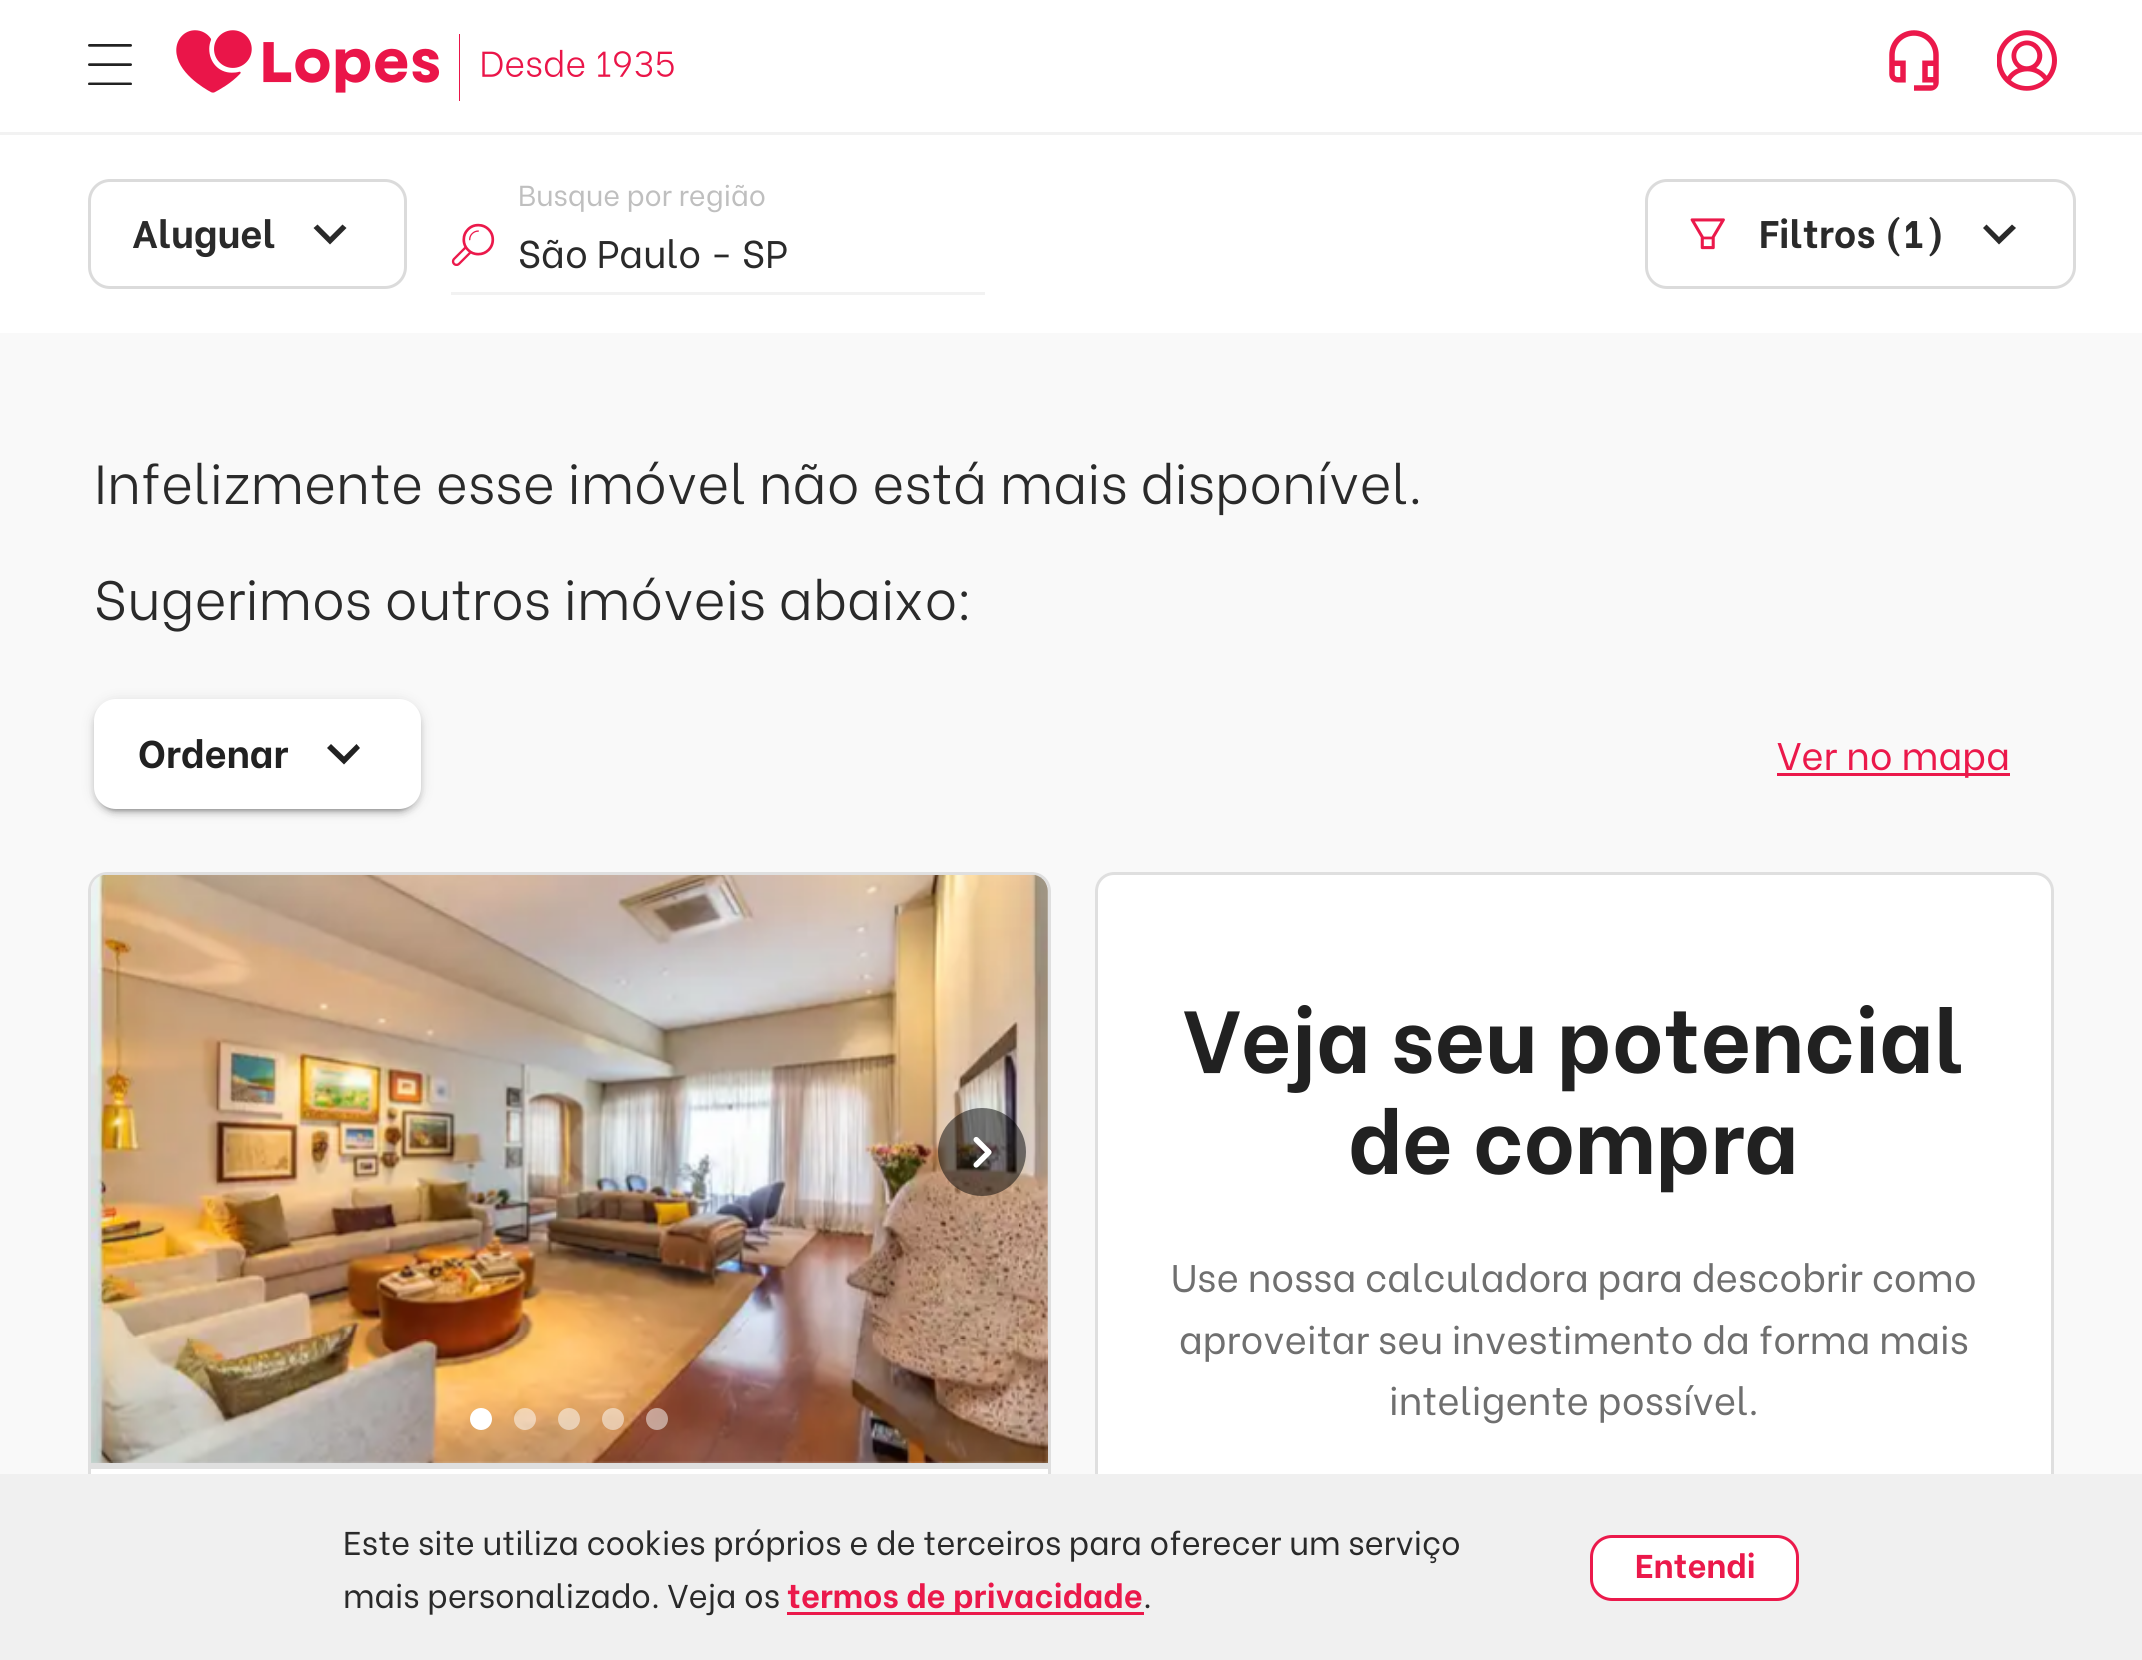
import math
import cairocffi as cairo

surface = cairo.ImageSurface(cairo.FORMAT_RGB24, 2142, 1660)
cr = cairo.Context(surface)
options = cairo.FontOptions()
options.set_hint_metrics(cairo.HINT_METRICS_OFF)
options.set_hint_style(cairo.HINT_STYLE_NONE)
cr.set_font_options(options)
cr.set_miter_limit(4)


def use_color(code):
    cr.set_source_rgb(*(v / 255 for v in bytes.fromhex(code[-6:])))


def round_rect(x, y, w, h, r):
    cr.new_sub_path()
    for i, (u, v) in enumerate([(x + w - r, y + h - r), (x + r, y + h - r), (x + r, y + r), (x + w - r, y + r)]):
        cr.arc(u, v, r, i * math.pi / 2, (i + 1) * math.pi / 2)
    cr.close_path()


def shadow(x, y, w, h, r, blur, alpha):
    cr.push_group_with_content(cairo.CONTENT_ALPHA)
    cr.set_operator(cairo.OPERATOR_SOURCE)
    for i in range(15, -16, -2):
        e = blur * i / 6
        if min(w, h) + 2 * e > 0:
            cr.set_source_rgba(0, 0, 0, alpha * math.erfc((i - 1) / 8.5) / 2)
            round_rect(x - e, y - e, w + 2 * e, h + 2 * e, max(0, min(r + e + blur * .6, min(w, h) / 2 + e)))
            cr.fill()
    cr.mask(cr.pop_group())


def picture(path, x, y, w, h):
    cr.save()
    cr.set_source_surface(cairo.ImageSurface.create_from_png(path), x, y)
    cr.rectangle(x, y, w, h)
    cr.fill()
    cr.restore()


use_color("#ffffff")
cr.paint()
use_color("#f2f2f2")
cr.rectangle(0, 132, 2142, 3)
cr.fill()
picture("img1.png", 88, 44, 44, 41)
picture("img2.png", 176, 30, 498, 71)
picture("img3.png", 1889, 30, 50, 61)
picture("img4.png", 1997, 30, 60, 61)
round_rect(89.5, 180.5, 316, 107, 20.5)
use_color("#dbdbdb")
cr.set_line_width(3)
cr.stroke()
cr.select_font_face("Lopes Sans", cairo.FONT_SLANT_NORMAL, cairo.FONT_WEIGHT_BOLD)
cr.set_font_size(38.5)
use_color("#2a2a2a")
cr.move_to(132, 248)
cr.show_text("Aluguel")
cr.new_path()
cr.move_to(342.5, 224.5)
cr.line_to(346.5, 228)
cr.line_to(330, 244.5)
cr.line_to(313.5, 228)
cr.line_to(317.5, 224.5)
cr.line_to(330, 237)
cr.close_path()
cr.fill()
picture("img5.png", 451, 223, 44, 43)
cr.select_font_face("Lopes Sans")
cr.set_font_size(28.9)
use_color("#bfbfbf")
cr.move_to(518, 206)
cr.show_text("Busque por região")
cr.set_font_size(38.5)
use_color("#2a2a2a")
cr.move_to(518, 268)
cr.show_text("São Paulo - SP")
use_color("#f2f2f2")
cr.rectangle(451, 292, 534, 3)
cr.fill()
round_rect(1646.5, 180.5, 428, 107, 20.5)
use_color("#dbdbdb")
cr.stroke()
picture("img6.png", 1690, 218, 35, 32)
cr.select_font_face("Lopes Sans", cairo.FONT_SLANT_NORMAL, cairo.FONT_WEIGHT_BOLD)
use_color("#2a2a2a")
cr.move_to(1759, 248)
cr.show_text("Filtros (1)")
cr.new_path()
cr.move_to(2012, 224.5)
cr.line_to(2016, 228)
cr.line_to(1999, 244.5)
cr.line_to(1983, 228)
cr.line_to(1986.5, 224.5)
cr.line_to(1999, 237)
cr.close_path()
cr.fill()
use_color("#f9f9f9")
cr.rectangle(0, 333, 2142, 1141)
cr.fill()
cr.select_font_face("Lopes Sans Light")
cr.set_font_size(55)
use_color("#2a2a2a")
cr.move_to(94, 504)
cr.show_text("Infelizmente esse imóvel não está mais disponível.")
cr.move_to(94, 620)
cr.show_text("Sugerimos outros imóveis abaixo:")
use_color("#000000")
shadow(94, 701, 327, 110, 22, 7, 0.12)
shadow(94, 704, 327, 110, 22, 3, 0.14)
shadow(99, 712, 316, 99, 17, 1.5, 0.2)
use_color("#ffffff")
round_rect(94, 699, 327, 110, 22)
cr.fill()
cr.select_font_face("Lopes Sans", cairo.FONT_SLANT_NORMAL, cairo.FONT_WEIGHT_BOLD)
cr.set_font_size(38.5)
use_color("#212121")
cr.move_to(138, 768)
cr.show_text("Ordenar")
cr.new_path()
cr.move_to(356.5, 744)
cr.line_to(360, 748)
cr.line_to(344, 764.5)
cr.line_to(327, 748)
cr.line_to(331, 744)
cr.line_to(344, 756.5)
cr.close_path()
cr.fill()
use_color("#eb194b")
cr.rectangle(1777, 773, 233, 3)
cr.fill()
cr.select_font_face("Lopes Sans")
cr.move_to(1777, 770)
cr.show_text("Ver no mapa")
use_color("#ffffff")
cr.new_path()
cr.move_to(107, 872)
cr.line_to(1032, 872)
cr.curve_to(1042.5, 872, 1051, 880.5, 1051, 891)
cr.line_to(1051, 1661)
cr.line_to(88, 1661)
cr.line_to(88, 891)
cr.curve_to(88, 880.5, 96.5, 872, 107, 872)
cr.close_path()
cr.fill()
round_rect(89.5, 873.5, 960, 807, 17.5)
use_color("#dfdfdf")
cr.stroke()
cr.new_path()
cr.move_to(108, 875)
cr.line_to(1031, 875)
cr.curve_to(1040.5, 875, 1048, 882.5, 1048, 892)
cr.line_to(1048, 1469)
cr.line_to(91, 1469)
cr.line_to(91, 892)
cr.curve_to(91, 882.5, 98.5, 875, 108, 875)
cr.close_path()
cr.fill()
picture("img7.png", 91, 875, 957, 588)
cr.set_source_rgba(0, 0, 0, 0.5)
cr.arc(982, 1152, 44, 0, 2 * math.pi)
cr.fill()
picture("img8.png", 973, 1136, 19, 32)
use_color("#ffffff")
cr.arc(481, 1419, 11, 0, 2 * math.pi)
cr.fill()
cr.set_source_rgba(1, 1, 1, 0.5)
cr.arc(525, 1419, 11, 0, 2 * math.pi)
cr.fill()
cr.arc(569, 1419, 11, 0, 2 * math.pi)
cr.fill()
cr.arc(613, 1419, 11, 0, 2 * math.pi)
cr.fill()
cr.arc(657, 1419, 11, 0, 2 * math.pi)
cr.fill()
use_color("#ffffff")
cr.new_path()
cr.move_to(1114, 872)
cr.line_to(2035, 872)
cr.curve_to(2045.5, 872, 2054, 880.5, 2054, 891)
cr.line_to(2054, 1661)
cr.line_to(1095, 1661)
cr.line_to(1095, 891)
cr.curve_to(1095, 880.5, 1103.5, 872, 1114, 872)
cr.close_path()
cr.fill()
round_rect(1096.5, 873.5, 956, 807, 17.5)
use_color("#dfdfdf")
cr.stroke()
cr.select_font_face("Lopes Sans", cairo.FONT_SLANT_NORMAL, cairo.FONT_WEIGHT_BOLD)
cr.set_font_size(88)
use_color("#212121")
cr.move_to(1183, 1073)
cr.show_text("Veja seu potencial")
cr.move_to(1348, 1174)
cr.show_text("de compra")
cr.select_font_face("Lopes Sans")
cr.set_font_size(38.5)
use_color("#6f6f6f")
cr.move_to(1171, 1292)
cr.show_text("Use nossa calculadora para descobrir como")
cr.move_to(1179, 1354)
cr.show_text("aproveitar seu investimento da forma mais")
cr.move_to(1389, 1415)
cr.show_text("inteligente possível.")
use_color("#f0f0f0")
cr.rectangle(0, 1474, 2142, 186)
cr.fill()
cr.set_font_size(33)
use_color("#2a2a2a")
cr.move_to(343, 1555)
cr.show_text("Este site utiliza cookies próprios e de terceiros para oferecer um serviço")
cr.move_to(343, 1608)
cr.show_text("mais personalizado. Veja os")
use_color("#eb194b")
cr.rectangle(787, 1612, 357, 3)
cr.fill()
cr.select_font_face("Lopes Sans", cairo.FONT_SLANT_NORMAL, cairo.FONT_WEIGHT_BOLD)
cr.move_to(787, 1608)
cr.show_text("termos de privacidade")
cr.select_font_face("Lopes Sans")
use_color("#2a2a2a")
cr.move_to(1143, 1608)
cr.show_text(".")
use_color("#ffffff")
round_rect(1591.5, 1536.5, 206, 63, 20.5)
cr.fill_preserve()
use_color("#eb194b")
cr.stroke()
cr.select_font_face("Lopes Sans", cairo.FONT_SLANT_NORMAL, cairo.FONT_WEIGHT_BOLD)
cr.move_to(1635, 1578)
cr.show_text("Entendi")
surface.write_to_png("result.png")
